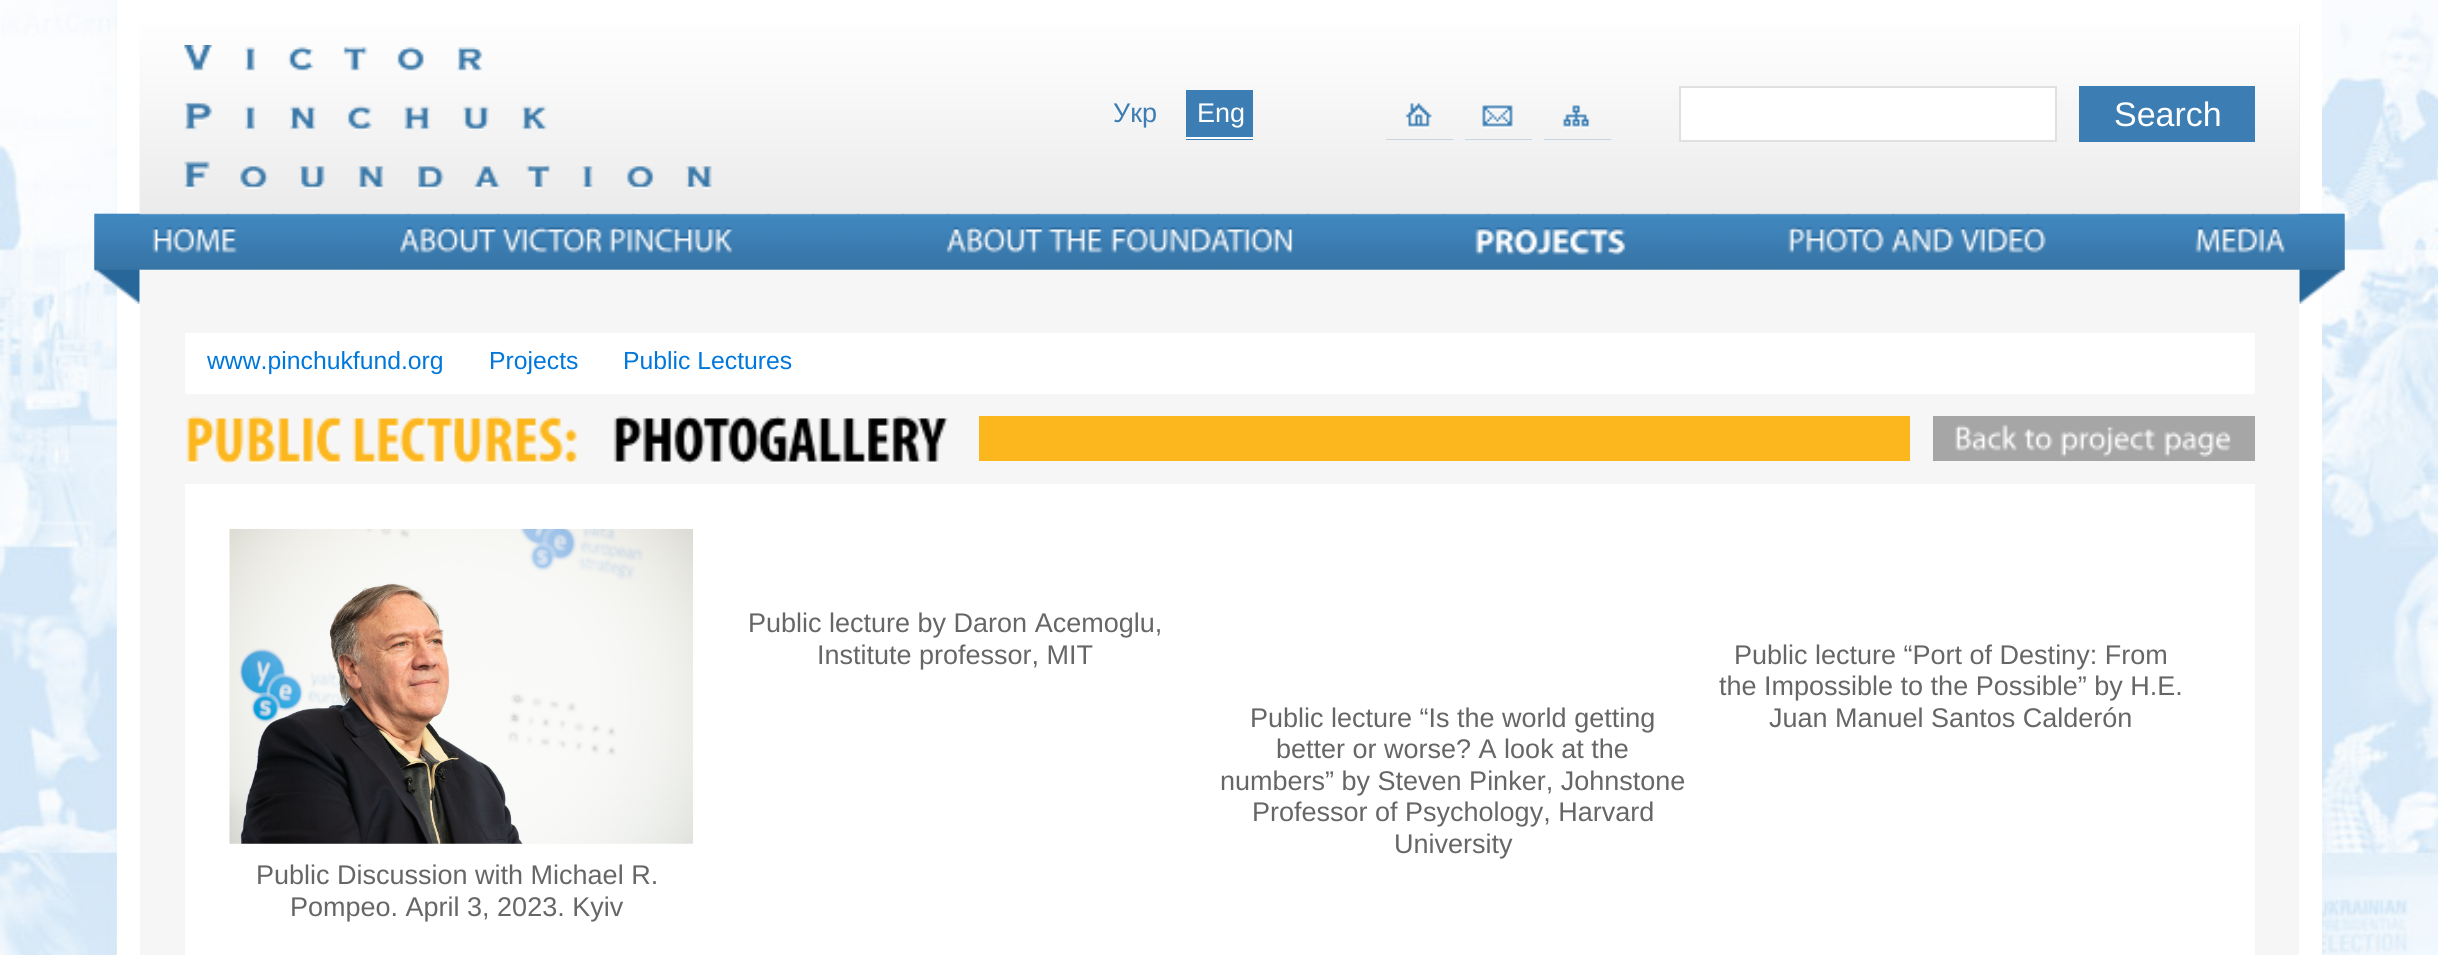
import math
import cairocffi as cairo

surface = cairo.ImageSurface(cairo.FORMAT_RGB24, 2438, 955)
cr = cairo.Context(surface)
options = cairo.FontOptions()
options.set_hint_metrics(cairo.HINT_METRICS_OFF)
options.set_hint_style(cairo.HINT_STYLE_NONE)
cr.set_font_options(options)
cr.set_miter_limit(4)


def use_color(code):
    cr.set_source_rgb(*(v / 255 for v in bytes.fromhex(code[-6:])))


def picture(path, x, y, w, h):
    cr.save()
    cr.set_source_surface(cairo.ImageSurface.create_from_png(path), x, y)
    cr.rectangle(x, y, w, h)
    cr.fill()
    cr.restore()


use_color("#ffffff")
cr.paint()
picture("img1.png", 0, 0, 2438, 955)
use_color("#f6f6f6")
cr.rectangle(140, 214, 2159, 741)
cr.fill()
cr.rectangle(128.5, 11.5, 2182, 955)
use_color("#ffffff")
cr.set_line_width(23)
cr.stroke()
picture("img8.png", 2299, 213, 46, 91)
use_color("#e9e9e9")
cr.rectangle(140, 23, 2160, 191)
cr.fill()
picture("img7.png", 94, 213, 46, 91)
picture("img2.png", 139, 23, 2161, 191)
picture("img3.png", 184, 45, 528, 144)
cr.select_font_face("Liberation Sans")
cr.set_font_size(27)
use_color("#3c7eb3")
cr.move_to(1113, 122)
cr.show_text("Укр")
cr.rectangle(1186, 90, 67, 50)
cr.fill()
use_color("#ffffff")
cr.rectangle(1186, 137, 67, 2)
cr.fill()
cr.move_to(1197, 122)
cr.show_text("Eng")
picture("img4.png", 1386, 103, 68, 37)
picture("img5.png", 1465, 105, 67, 35)
picture("img6.png", 1543, 105, 68, 35)
cr.rectangle(1680, 87, 376, 54)
cr.fill_preserve()
use_color("#e0e0e0")
cr.set_line_width(2)
cr.stroke()
use_color("#3c7eb3")
cr.rectangle(2079, 86, 176, 56)
cr.fill()
cr.set_font_size(34)
use_color("#ffffff")
cr.move_to(2114, 126)
cr.show_text("Search")
picture("img9.png", 94, 213, 2251, 57)
picture("img10.png", 152, 225, 85, 28)
picture("img11.png", 400, 225, 96, 28)
picture("img12.png", 501, 225, 101, 28)
picture("img13.png", 609, 225, 124, 28)
picture("img14.png", 946, 225, 97, 28)
picture("img15.png", 1048, 227, 55, 26)
picture("img16.png", 1111, 225, 182, 28)
picture("img17.png", 1475, 227, 151, 28)
picture("img18.png", 1788, 225, 96, 28)
picture("img19.png", 1891, 225, 63, 28)
picture("img20.png", 1959, 225, 87, 28)
picture("img21.png", 2195, 225, 91, 28)
cr.rectangle(185, 333, 2070, 61)
cr.fill()
cr.set_font_size(24.75)
use_color("#0077db")
cr.move_to(207, 369)
cr.show_text("www.pinchukfund.org")
cr.move_to(489, 369)
cr.show_text("Projects")
cr.move_to(623, 369)
cr.show_text("Public Lectures")
use_color("#ffffff")
cr.rectangle(185, 484, 2070, 471)
cr.fill()
use_color("#fcb71e")
cr.rectangle(979, 416, 931, 45)
cr.fill()
picture("img22.png", 186, 415, 157, 49)
picture("img23.png", 352, 415, 225, 49)
picture("img24.png", 613, 415, 335, 49)
use_color("#a6a6a6")
cr.rectangle(1933, 416, 322, 45)
cr.fill()
picture("img25.png", 1955, 424, 62, 27)
picture("img26.png", 2023, 429, 30, 22)
picture("img27.png", 2060, 427, 96, 30)
picture("img28.png", 2164, 431, 67, 26)
cr.set_font_size(27)
use_color("#666666")
cr.move_to(748, 632)
cr.show_text("Public lecture by Daron Acemoglu,")
cr.move_to(817, 664)
cr.show_text("Institute professor, MIT")
cr.move_to(1734, 664)
cr.show_text("Public lecture “Port of Destiny: From")
cr.move_to(1719, 695)
cr.show_text("the Impossible to the Possible” by H.E.")
cr.move_to(1769, 727)
cr.show_text("Juan Manuel Santos Calderón")
cr.move_to(1250, 727)
cr.show_text("Public lecture “Is the world getting")
cr.move_to(1276, 758)
cr.show_text("better or worse? A look at the")
cr.move_to(1220, 790)
cr.show_text("numbers” by Steven Pinker, Johnstone")
cr.move_to(1252, 821)
cr.show_text("Professor of Psychology, Harvard")
cr.move_to(1394, 853)
cr.show_text("University")
picture("img29.png", 229, 528, 464, 316)
cr.move_to(256, 884)
cr.show_text("Public Discussion with Michael R.")
cr.move_to(290, 916)
cr.show_text("Pompeo. April 3, 2023. Kyiv")
surface.write_to_png("result.png")
